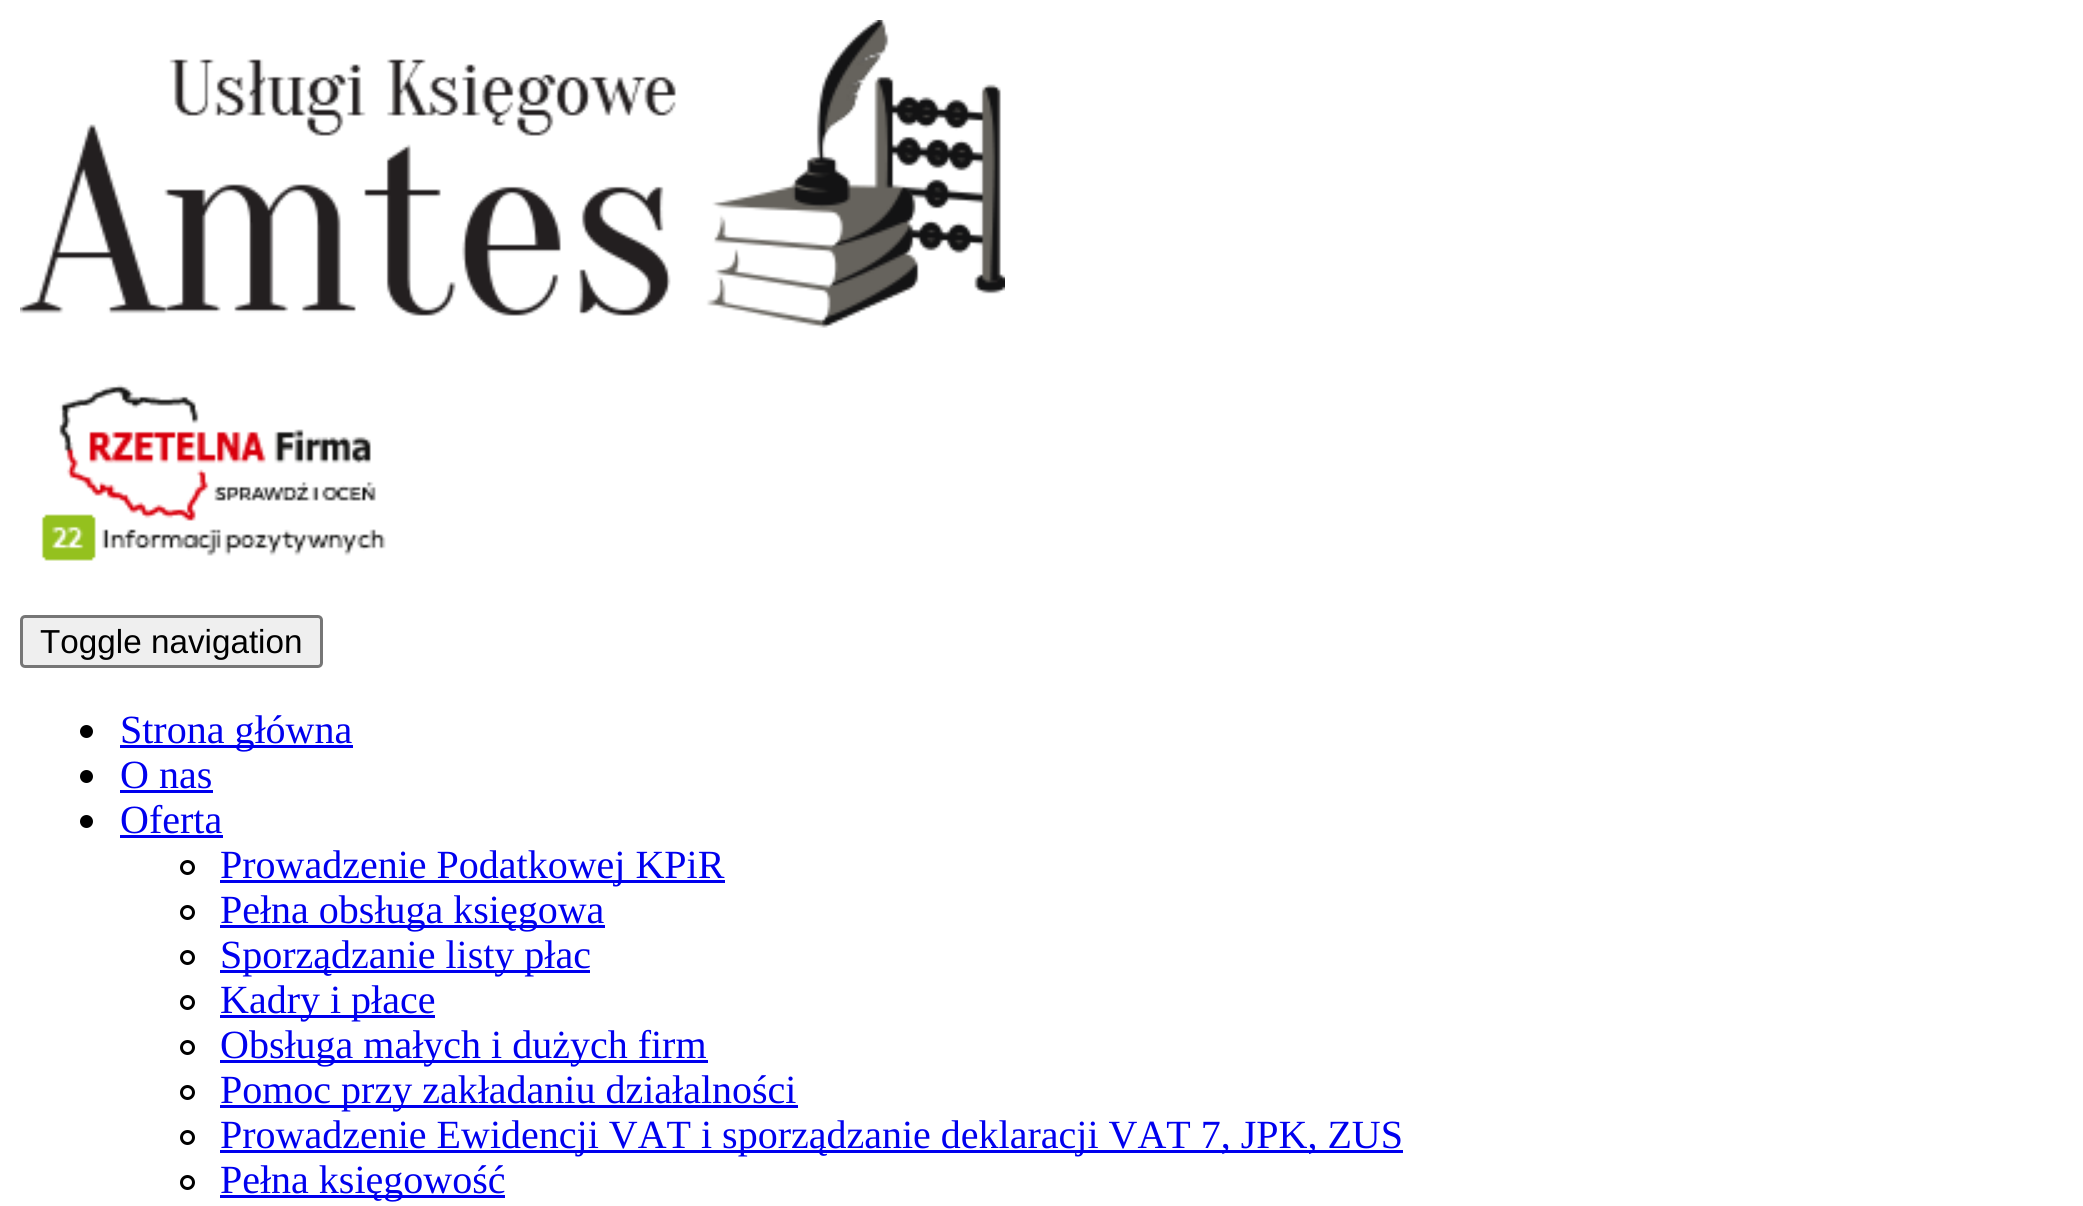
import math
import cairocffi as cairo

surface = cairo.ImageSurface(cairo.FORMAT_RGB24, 2083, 1206)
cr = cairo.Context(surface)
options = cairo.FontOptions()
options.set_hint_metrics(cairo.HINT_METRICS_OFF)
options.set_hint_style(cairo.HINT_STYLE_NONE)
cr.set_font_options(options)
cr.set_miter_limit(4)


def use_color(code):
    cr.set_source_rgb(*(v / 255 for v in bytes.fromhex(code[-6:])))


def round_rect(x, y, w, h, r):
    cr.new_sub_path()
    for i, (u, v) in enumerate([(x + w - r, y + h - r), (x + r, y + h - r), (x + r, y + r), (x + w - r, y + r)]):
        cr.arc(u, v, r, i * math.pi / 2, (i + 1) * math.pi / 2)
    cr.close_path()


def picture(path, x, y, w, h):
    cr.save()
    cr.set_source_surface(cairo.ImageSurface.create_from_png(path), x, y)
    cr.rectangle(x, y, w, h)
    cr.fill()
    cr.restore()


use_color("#ffffff")
cr.paint()
picture("img1.png", 20, 20, 985, 308)
picture("img2.png", 41, 384, 345, 177)
use_color("#efefef")
round_rect(21.5, 616.5, 300, 50, 3.5)
cr.fill_preserve()
use_color("#767676")
cr.set_line_width(3)
cr.stroke()
cr.select_font_face("Liberation Sans")
cr.set_font_size(33.25)
use_color("#000000")
cr.move_to(40, 653)
cr.show_text("Toggle navigation")
cr.new_path()
cr.arc(86.5, 731.5, 6.5, 0, 2 * math.pi)
cr.fill()
use_color("#0000ee")
cr.rectangle(120, 745, 233, 3)
cr.fill()
cr.select_font_face("Liberation Serif")
cr.set_font_size(40)
cr.move_to(120, 743)
cr.show_text("Strona główna")
use_color("#000000")
cr.new_path()
cr.arc(86.5, 776.5, 6.5, 0, 2 * math.pi)
cr.fill()
use_color("#0000ee")
cr.move_to(120, 788)
cr.show_text("O nas")
cr.rectangle(120, 790, 93, 3)
cr.fill()
use_color("#000000")
cr.arc(86.5, 821.5, 6.5, 0, 2 * math.pi)
cr.fill()
use_color("#0000ee")
cr.move_to(120, 833)
cr.show_text("Oferta")
cr.rectangle(120, 835, 103, 3)
cr.fill()
cr.arc(187.5, 867.5, 6, 0, 2 * math.pi)
use_color("#000000")
cr.stroke()
use_color("#0000ee")
cr.rectangle(220, 880, 505, 3)
cr.fill()
cr.move_to(220, 878)
cr.show_text("Prowadzenie Podatkowej KPiR")
cr.new_path()
cr.arc(187.5, 912.5, 6, 0, 2 * math.pi)
use_color("#000000")
cr.stroke()
use_color("#0000ee")
cr.rectangle(220, 925, 385, 3)
cr.fill()
cr.move_to(220, 923)
cr.show_text("Pełna obsługa księgowa")
cr.new_path()
cr.arc(187.5, 957.5, 6, 0, 2 * math.pi)
use_color("#000000")
cr.stroke()
use_color("#0000ee")
cr.rectangle(220, 970, 370, 3)
cr.fill()
cr.move_to(220, 968)
cr.show_text("Sporządzanie listy płac")
cr.new_path()
cr.arc(187.5, 1002.5, 6, 0, 2 * math.pi)
use_color("#000000")
cr.stroke()
use_color("#0000ee")
cr.rectangle(220, 1015, 215, 3)
cr.fill()
cr.move_to(220, 1013)
cr.show_text("Kadry i płace")
cr.new_path()
cr.arc(187.5, 1047.5, 6, 0, 2 * math.pi)
use_color("#000000")
cr.stroke()
use_color("#0000ee")
cr.rectangle(220, 1060, 488, 3)
cr.fill()
cr.move_to(220, 1058)
cr.show_text("Obsługa małych i dużych firm")
cr.new_path()
cr.arc(187.5, 1092.5, 6, 0, 2 * math.pi)
use_color("#000000")
cr.stroke()
use_color("#0000ee")
cr.rectangle(220, 1105, 578, 3)
cr.fill()
cr.move_to(220, 1103)
cr.show_text("Pomoc przy zakładaniu działalności")
cr.new_path()
cr.arc(187.5, 1137.5, 6, 0, 2 * math.pi)
use_color("#000000")
cr.stroke()
use_color("#0000ee")
cr.rectangle(220, 1150, 1183, 3)
cr.fill()
cr.move_to(220, 1148)
cr.show_text("Prowadzenie Ewidencji VAT i sporządzanie deklaracji VAT 7, JPK, ZUS")
cr.new_path()
cr.arc(187.5, 1182.5, 6, 0, 2 * math.pi)
use_color("#000000")
cr.stroke()
use_color("#0000ee")
cr.rectangle(220, 1195, 285, 3)
cr.fill()
cr.move_to(220, 1193)
cr.show_text("Pełna księgowość")
surface.write_to_png("result.png")
